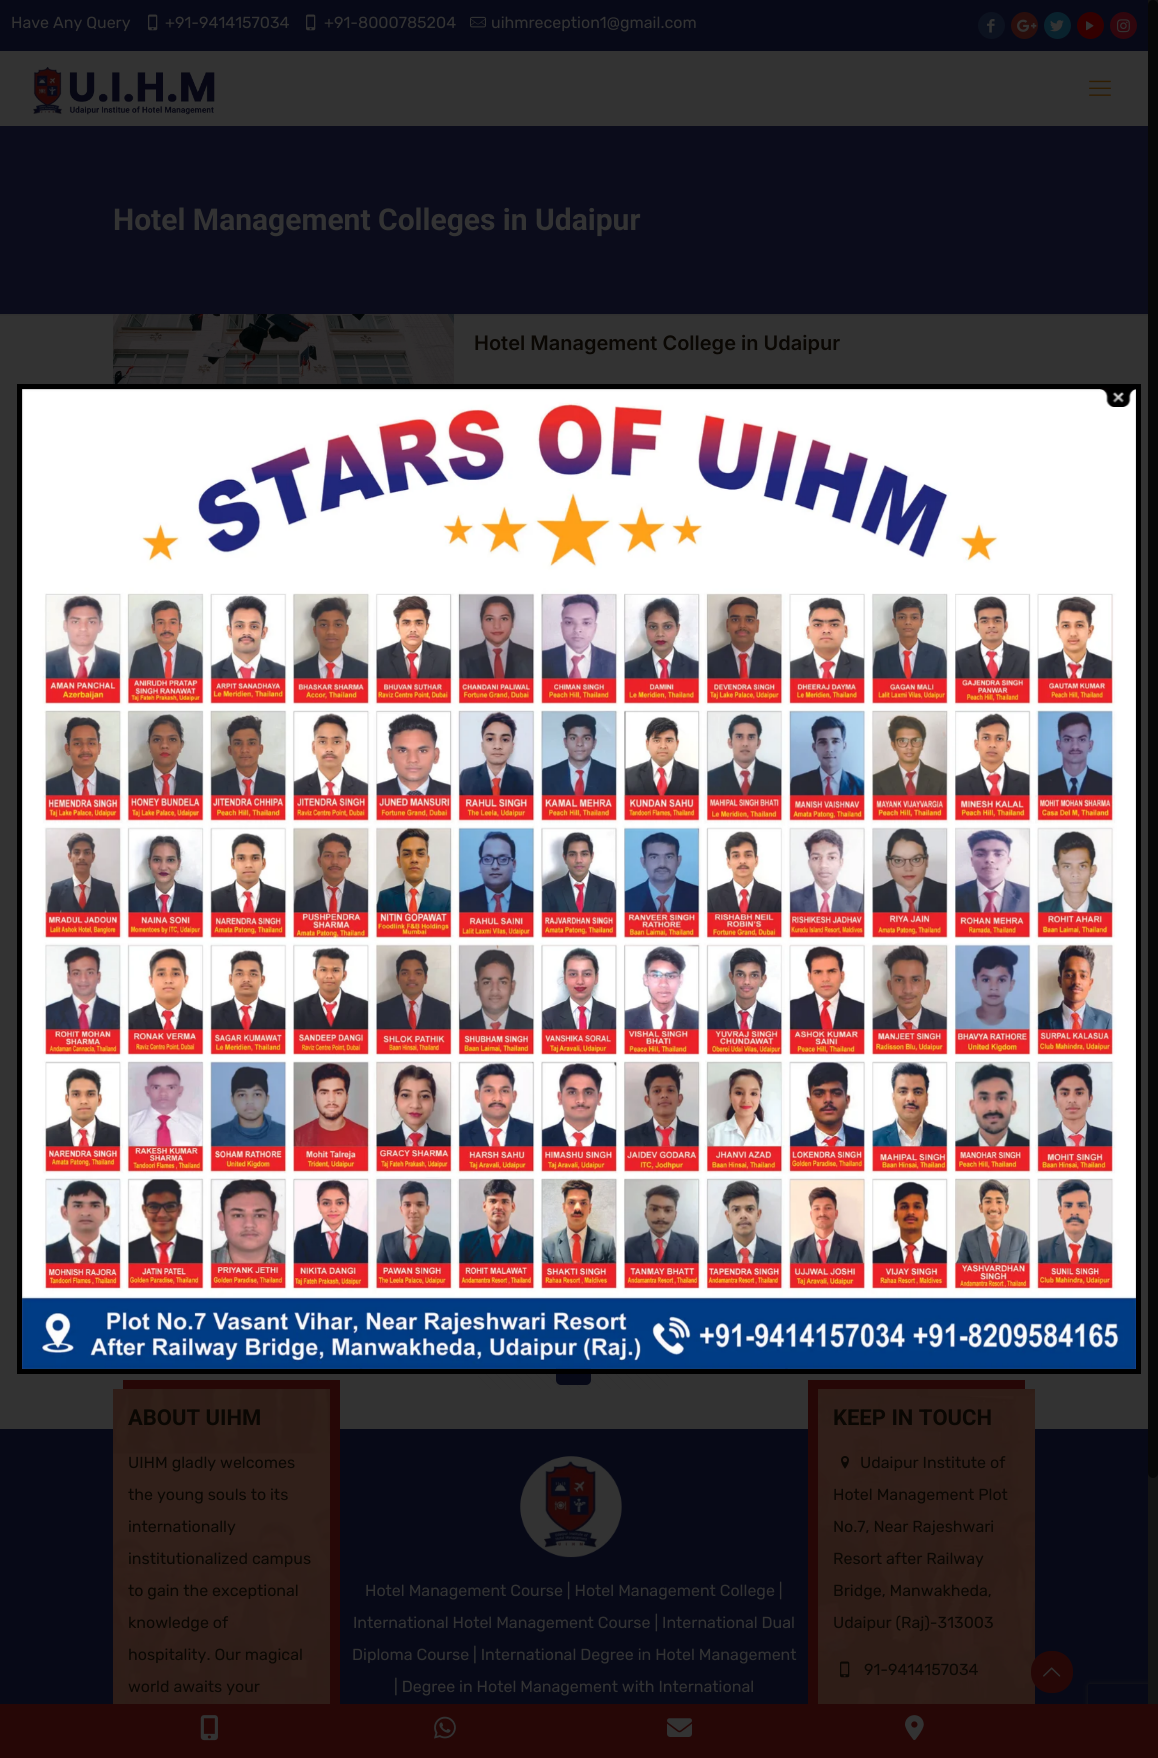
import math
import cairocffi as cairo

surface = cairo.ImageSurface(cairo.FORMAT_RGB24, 1158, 1758)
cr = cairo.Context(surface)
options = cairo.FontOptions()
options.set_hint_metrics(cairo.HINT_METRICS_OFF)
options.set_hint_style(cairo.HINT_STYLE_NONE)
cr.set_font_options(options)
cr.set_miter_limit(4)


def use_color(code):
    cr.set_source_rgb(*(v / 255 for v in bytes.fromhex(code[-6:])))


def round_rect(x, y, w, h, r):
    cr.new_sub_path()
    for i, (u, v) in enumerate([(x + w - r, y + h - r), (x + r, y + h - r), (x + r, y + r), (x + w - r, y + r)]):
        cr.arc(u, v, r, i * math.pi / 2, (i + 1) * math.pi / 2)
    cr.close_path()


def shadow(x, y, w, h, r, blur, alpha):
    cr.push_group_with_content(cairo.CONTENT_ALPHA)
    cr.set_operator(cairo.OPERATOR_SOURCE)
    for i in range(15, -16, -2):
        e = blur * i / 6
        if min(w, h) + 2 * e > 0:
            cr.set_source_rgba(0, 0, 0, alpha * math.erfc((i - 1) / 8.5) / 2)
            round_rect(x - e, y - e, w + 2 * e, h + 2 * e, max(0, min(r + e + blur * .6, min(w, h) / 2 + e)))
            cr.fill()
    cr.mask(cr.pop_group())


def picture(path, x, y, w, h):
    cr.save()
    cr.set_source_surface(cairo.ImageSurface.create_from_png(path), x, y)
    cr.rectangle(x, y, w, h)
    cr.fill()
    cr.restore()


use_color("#333333")
cr.paint()
use_color("#070917")
cr.rectangle(0, 0, 1148, 51)
cr.fill()
cr.select_font_face("Rubik")
cr.set_font_size(16)
use_color("#333333")
cr.move_to(11, 28)
cr.show_text("Have Any Query")
picture("img1.png", 148, 14, 10, 17)
cr.move_to(165, 28)
cr.show_text("+91-9414157034")
picture("img1.png", 306, 14, 10, 17)
cr.move_to(324, 28)
cr.show_text("+91-8000785204")
picture("img2.png", 470, 16, 16, 12)
cr.move_to(491, 28)
cr.show_text("uihmreception1@gmail.com")
use_color("#0c121f")
cr.new_path()
cr.arc(991.5, 25.5, 13.5, 0, 2 * math.pi)
cr.fill()
picture("img3.png", 987, 19, 8, 14)
use_color("#290e0c")
cr.arc(1024.5, 25.5, 13.5, 0, 2 * math.pi)
cr.fill()
picture("img4.png", 1017, 19, 20, 13)
use_color("#09222d")
cr.arc(1057.5, 25.5, 13.5, 0, 2 * math.pi)
cr.fill()
picture("img5.png", 1050, 20, 14, 12)
use_color("#330000")
cr.arc(1090.5, 25.5, 13.5, 0, 2 * math.pi)
cr.fill()
picture("img6.png", 1086, 21, 8, 10)
use_color("#30060d")
cr.arc(1123.5, 25.5, 13.5, 0, 2 * math.pi)
cr.fill()
picture("img7.png", 1117, 19, 13, 14)
picture("img8.png", 33, 67, 182, 48)
picture("img9.png", 1089, 80, 22, 16)
use_color("#0b0c1b")
cr.rectangle(0, 126, 1148, 188)
cr.fill()
cr.select_font_face("Roboto", cairo.FONT_SLANT_NORMAL, cairo.FONT_WEIGHT_BOLD)
cr.set_font_size(30)
use_color("#333333")
cr.move_to(113, 230)
cr.show_text("Hotel Management Colleges in Udaipur")
picture("img10.png", 0, 314, 1148, 2)
picture("img11.png", 113, 314, 341, 76)
cr.select_font_face("Inter SemiBold")
cr.set_font_size(20)
use_color("#0a0703")
cr.move_to(474, 350)
cr.show_text("Hotel Management College in Udaipur")
picture("img12.png", 359, 1368, 4, 1)
picture("img13.png", 478, 1368, 191, 21)
use_color("#070917")
round_rect(556, 1350, 35, 35, 5)
cr.fill()
picture("img14.png", 784, 1368, 4, 1)
cr.rectangle(0, 1429, 1148, 275)
cr.fill()
use_color("#260706")
cr.new_path()
cr.move_to(123, 1380)
cr.line_to(123, 1389)
cr.line_to(330, 1389)
cr.line_to(330, 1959)
cr.line_to(340, 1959)
cr.line_to(340, 1380)
cr.close_path()
cr.fill()
picture("img15.png", 113, 1389, 217, 315)
cr.select_font_face("Roboto", cairo.FONT_SLANT_NORMAL, cairo.FONT_WEIGHT_BOLD)
cr.set_font_size(22)
use_color("#0a0703")
cr.move_to(128, 1425)
cr.show_text("ABOUT UIHM")
cr.select_font_face("Rubik")
cr.set_font_size(16)
cr.move_to(128, 1468)
cr.show_text("UIHM gladly welcomes")
cr.move_to(128, 1500)
cr.show_text("the young souls to its")
cr.move_to(128, 1532)
cr.show_text("internationally")
cr.move_to(128, 1564)
cr.show_text("institutionalized campus")
cr.move_to(128, 1596)
cr.show_text("to gain the exceptional")
cr.move_to(128, 1628)
cr.show_text("knowledge of")
cr.move_to(128, 1660)
cr.show_text("hospitality. Our magical")
cr.move_to(128, 1692)
cr.show_text("world awaits your")
use_color("#260706")
cr.new_path()
cr.move_to(808, 1380)
cr.line_to(808, 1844)
cr.line_to(818, 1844)
cr.line_to(818, 1389)
cr.line_to(1025, 1389)
cr.line_to(1025, 1380)
cr.close_path()
cr.fill()
cr.save()
cr.set_fill_rule(cairo.FILL_RULE_EVEN_ODD)
cr.new_path()
cr.move_to(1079, 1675)
cr.line_to(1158, 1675)
cr.line_to(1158, 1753)
cr.line_to(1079, 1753)
cr.close_path()
cr.move_to(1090, 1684)
cr.line_to(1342, 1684)
cr.curve_to(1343, 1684, 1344, 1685, 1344, 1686)
cr.line_to(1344, 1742)
cr.curve_to(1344, 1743, 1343, 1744, 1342, 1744)
cr.line_to(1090, 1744)
cr.curve_to(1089, 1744, 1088, 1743, 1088, 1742)
cr.line_to(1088, 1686)
cr.curve_to(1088, 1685, 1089, 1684, 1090, 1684)
cr.close_path()
cr.clip()
use_color("#1a1a1a")
shadow(1088, 1684, 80, 60, 2, 2.5, 1)
cr.restore()
cr.rectangle(0, 1704, 1158, 54)
cr.fill()
picture("img16.png", 200, 1715, 18, 26)
picture("img17.png", 434, 1716, 22, 23)
picture("img18.png", 667, 1718, 25, 19)
picture("img19.png", 905, 1715, 19, 26)
picture("img20.png", 520, 1456, 102, 102)
use_color("#333333")
cr.move_to(365, 1596)
cr.show_text("Hotel Management Course | Hotel Management College |")
cr.move_to(353, 1628)
cr.show_text("International Hotel Management Course | International Dual")
cr.move_to(352, 1660)
cr.show_text("Diploma Course | International Degree in Hotel Management")
cr.move_to(394, 1692)
cr.show_text("| Degree in Hotel Management with International")
picture("img21.png", 818, 1389, 217, 315)
cr.select_font_face("Roboto", cairo.FONT_SLANT_NORMAL, cairo.FONT_WEIGHT_BOLD)
cr.set_font_size(22)
use_color("#0a0703")
cr.move_to(833, 1425)
cr.show_text("KEEP IN TOUCH")
picture("img22.png", 841, 1456, 8, 13)
cr.select_font_face("Rubik")
cr.set_font_size(16)
cr.move_to(860, 1468)
cr.show_text("Udaipur Institute of")
cr.move_to(833, 1500)
cr.show_text("Hotel Management Plot")
cr.move_to(833, 1532)
cr.show_text("No.7, Near Rajeshwari")
cr.move_to(833, 1564)
cr.show_text("Resort after Railway")
cr.move_to(833, 1596)
cr.show_text("Bridge, Manwakheda,")
cr.move_to(833, 1628)
cr.show_text("Udaipur (Raj)-313003")
picture("img23.png", 840, 1661, 10, 17)
cr.move_to(864, 1675)
cr.show_text("91-9414157034")
use_color("#141414")
cr.rectangle(1148, 0, 10, 1704)
cr.fill()
use_color("#070707")
round_rect(1148, 0, 10, 1478, 5)
cr.fill()
picture("img24.png", 22, 389, 1114, 980)
cr.rectangle(19.5, 386.5, 1119, 985)
use_color("#000000")
cr.set_line_width(5)
cr.stroke()
picture("img25.png", 1100, 388, 36, 19)
use_color("#260706")
round_rect(1031, 1651, 42, 42, 20)
cr.fill()
picture("img26.png", 1043, 1667, 18, 10)
surface.write_to_png("result.png")
